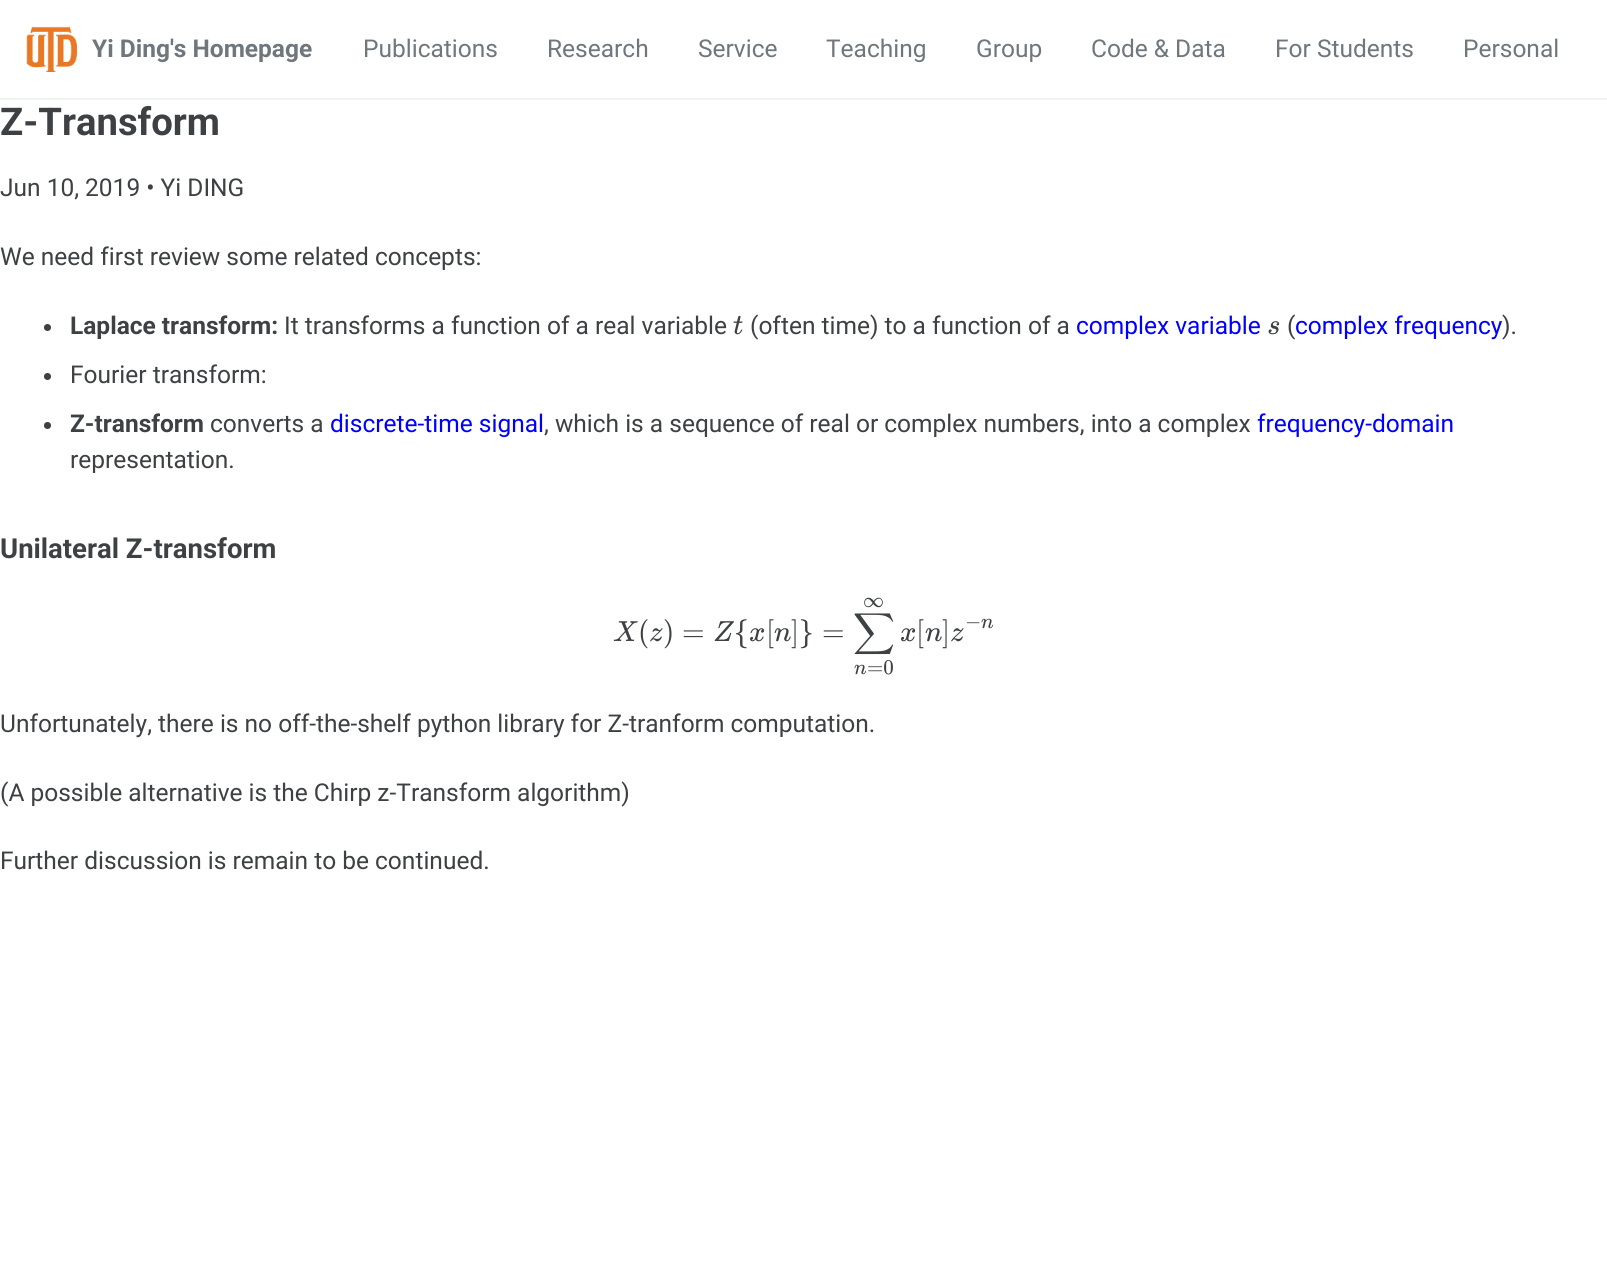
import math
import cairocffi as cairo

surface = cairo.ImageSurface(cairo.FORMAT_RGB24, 1607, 1263)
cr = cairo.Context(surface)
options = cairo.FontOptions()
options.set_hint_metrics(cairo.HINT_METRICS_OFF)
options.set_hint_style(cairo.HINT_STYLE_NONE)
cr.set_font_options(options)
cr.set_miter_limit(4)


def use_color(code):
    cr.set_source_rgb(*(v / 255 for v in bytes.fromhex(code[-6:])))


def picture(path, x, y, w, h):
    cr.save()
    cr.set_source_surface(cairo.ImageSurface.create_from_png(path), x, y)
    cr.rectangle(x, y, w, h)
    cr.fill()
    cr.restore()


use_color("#ffffff")
cr.paint()
use_color("#f2f3f3")
cr.rectangle(0, 98, 1607, 2)
cr.fill()
picture("img1.png", 26, 26, 51, 46)
cr.select_font_face("Roboto", cairo.FONT_SLANT_NORMAL, cairo.FONT_WEIGHT_BOLD)
cr.set_font_size(24.5)
use_color("#6f777d")
cr.move_to(92, 57)
cr.show_text("Yi Ding's Homepage")
cr.select_font_face("Roboto")
cr.move_to(363, 57)
cr.show_text("Publications")
cr.move_to(547, 57)
cr.show_text("Research")
cr.move_to(698, 57)
cr.show_text("Service")
cr.move_to(826, 57)
cr.show_text("Teaching")
cr.move_to(976, 57)
cr.show_text("Group")
cr.move_to(1091, 57)
cr.show_text("Code & Data")
cr.move_to(1275, 57)
cr.show_text("For Students")
cr.move_to(1463, 57)
cr.show_text("Personal")
cr.select_font_face("Roboto", cairo.FONT_SLANT_NORMAL, cairo.FONT_WEIGHT_BOLD)
cr.set_font_size(38.25)
use_color("#3d4144")
cr.move_to(0, 135)
cr.show_text("Z-Transform")
cr.select_font_face("Roboto")
cr.set_font_size(24.5)
cr.move_to(0, 196)
cr.show_text("Jun 10, 2019 • Yi DING")
cr.move_to(0, 265)
cr.show_text("We need first review some related concepts:")
cr.new_path()
cr.arc(47.5, 327.5, 3.5, 0, 2 * math.pi)
cr.fill()
cr.select_font_face("Roboto", cairo.FONT_SLANT_NORMAL, cairo.FONT_WEIGHT_BOLD)
cr.move_to(70, 334)
cr.show_text("Laplace transform:")
cr.select_font_face("Roboto")
cr.move_to(284, 334)
cr.show_text("It transforms a function of a real variable")
cr.select_font_face("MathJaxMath", cairo.FONT_SLANT_ITALIC)
cr.set_font_size(29)
cr.move_to(733, 334)
cr.show_text("t")
cr.select_font_face("Roboto")
cr.set_font_size(24.5)
cr.move_to(750, 334)
cr.show_text("(often time) to a function of a")
use_color("#0000ff")
cr.move_to(1076, 334)
cr.show_text("complex variable")
cr.select_font_face("MathJaxMath", cairo.FONT_SLANT_ITALIC)
cr.set_font_size(29)
use_color("#3d4144")
cr.move_to(1267, 334)
cr.show_text("s")
cr.select_font_face("Roboto")
cr.set_font_size(24.5)
cr.move_to(1287, 334)
cr.show_text("(")
use_color("#0000ff")
cr.move_to(1295, 334)
cr.show_text("complex frequency")
use_color("#3d4144")
cr.move_to(1502, 334)
cr.show_text(").")
cr.new_path()
cr.arc(47.5, 376.5, 3.5, 0, 2 * math.pi)
cr.fill()
cr.move_to(70, 383)
cr.show_text("Fourier transform:")
cr.new_path()
cr.arc(47.5, 425.5, 3.5, 0, 2 * math.pi)
cr.fill()
cr.select_font_face("Roboto", cairo.FONT_SLANT_NORMAL, cairo.FONT_WEIGHT_BOLD)
cr.move_to(70, 432)
cr.show_text("Z-transform")
cr.select_font_face("Roboto")
cr.move_to(210, 432)
cr.show_text("converts a")
use_color("#0000ff")
cr.move_to(330, 432)
cr.show_text("discrete-time signal")
use_color("#3d4144")
cr.move_to(544, 432)
cr.show_text(", which is a sequence of real or complex numbers, into a complex")
use_color("#0000ff")
cr.move_to(1257, 432)
cr.show_text("frequency-domain")
use_color("#3d4144")
cr.move_to(70, 468)
cr.show_text("representation.")
cr.select_font_face("Roboto", cairo.FONT_SLANT_NORMAL, cairo.FONT_WEIGHT_BOLD)
cr.set_font_size(27.5)
cr.move_to(0, 558)
cr.show_text("Unilateral Z-transform")
cr.select_font_face("MathJaxMath", cairo.FONT_SLANT_ITALIC)
cr.set_font_size(29)
cr.move_to(613, 641)
cr.show_text("X")
cr.select_font_face("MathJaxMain")
cr.move_to(638, 641)
cr.show_text("(")
cr.select_font_face("MathJaxMath", cairo.FONT_SLANT_ITALIC)
cr.move_to(649, 641)
cr.show_text("z")
cr.select_font_face("MathJaxMain")
cr.move_to(663, 641)
cr.show_text(")")
cr.move_to(682, 641)
cr.show_text("=")
cr.select_font_face("MathJaxMath", cairo.FONT_SLANT_ITALIC)
cr.move_to(713, 641)
cr.show_text("Z")
cr.select_font_face("MathJaxMain")
cr.move_to(734, 641)
cr.show_text("{")
cr.select_font_face("MathJaxMath", cairo.FONT_SLANT_ITALIC)
cr.move_to(749, 641)
cr.show_text("x")
cr.select_font_face("MathJaxMain")
cr.move_to(766, 641)
cr.show_text("[")
cr.select_font_face("MathJaxMath", cairo.FONT_SLANT_ITALIC)
cr.move_to(774, 641)
cr.show_text("n")
cr.select_font_face("MathJaxMain")
cr.move_to(791, 641)
cr.show_text("]}")
cr.move_to(822, 641)
cr.show_text("=")
cr.set_font_size(21)
cr.move_to(863, 607)
cr.show_text("∞")
cr.select_font_face("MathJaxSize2")
cr.set_font_size(29)
cr.move_to(853, 641)
cr.show_text("∑")
cr.select_font_face("MathJaxMath", cairo.FONT_SLANT_ITALIC)
cr.set_font_size(21)
cr.move_to(854, 674)
cr.show_text("n")
cr.select_font_face("MathJaxMain")
cr.move_to(867, 674)
cr.show_text("=0")
cr.select_font_face("MathJaxMath", cairo.FONT_SLANT_ITALIC)
cr.set_font_size(29)
cr.move_to(900, 641)
cr.show_text("x")
cr.select_font_face("MathJaxMain")
cr.move_to(916, 641)
cr.show_text("[")
cr.select_font_face("MathJaxMath", cairo.FONT_SLANT_ITALIC)
cr.move_to(925, 641)
cr.show_text("n")
cr.select_font_face("MathJaxMain")
cr.move_to(942, 641)
cr.show_text("]")
cr.set_font_size(21)
cr.move_to(965, 628)
cr.show_text("−")
cr.select_font_face("MathJaxMath", cairo.FONT_SLANT_ITALIC)
cr.move_to(981, 628)
cr.show_text("n")
cr.set_font_size(29)
cr.move_to(950, 641)
cr.show_text("z")
cr.select_font_face("Roboto")
cr.set_font_size(24.5)
cr.move_to(0, 732)
cr.show_text("Unfortunately, there is no off-the-shelf python library for Z-tranform computation.")
cr.move_to(0, 801)
cr.show_text("(A possible alternative is the Chirp z-Transform algorithm)")
cr.move_to(0, 869)
cr.show_text("Further discussion is remain to be continued.")
surface.write_to_png("result.png")
